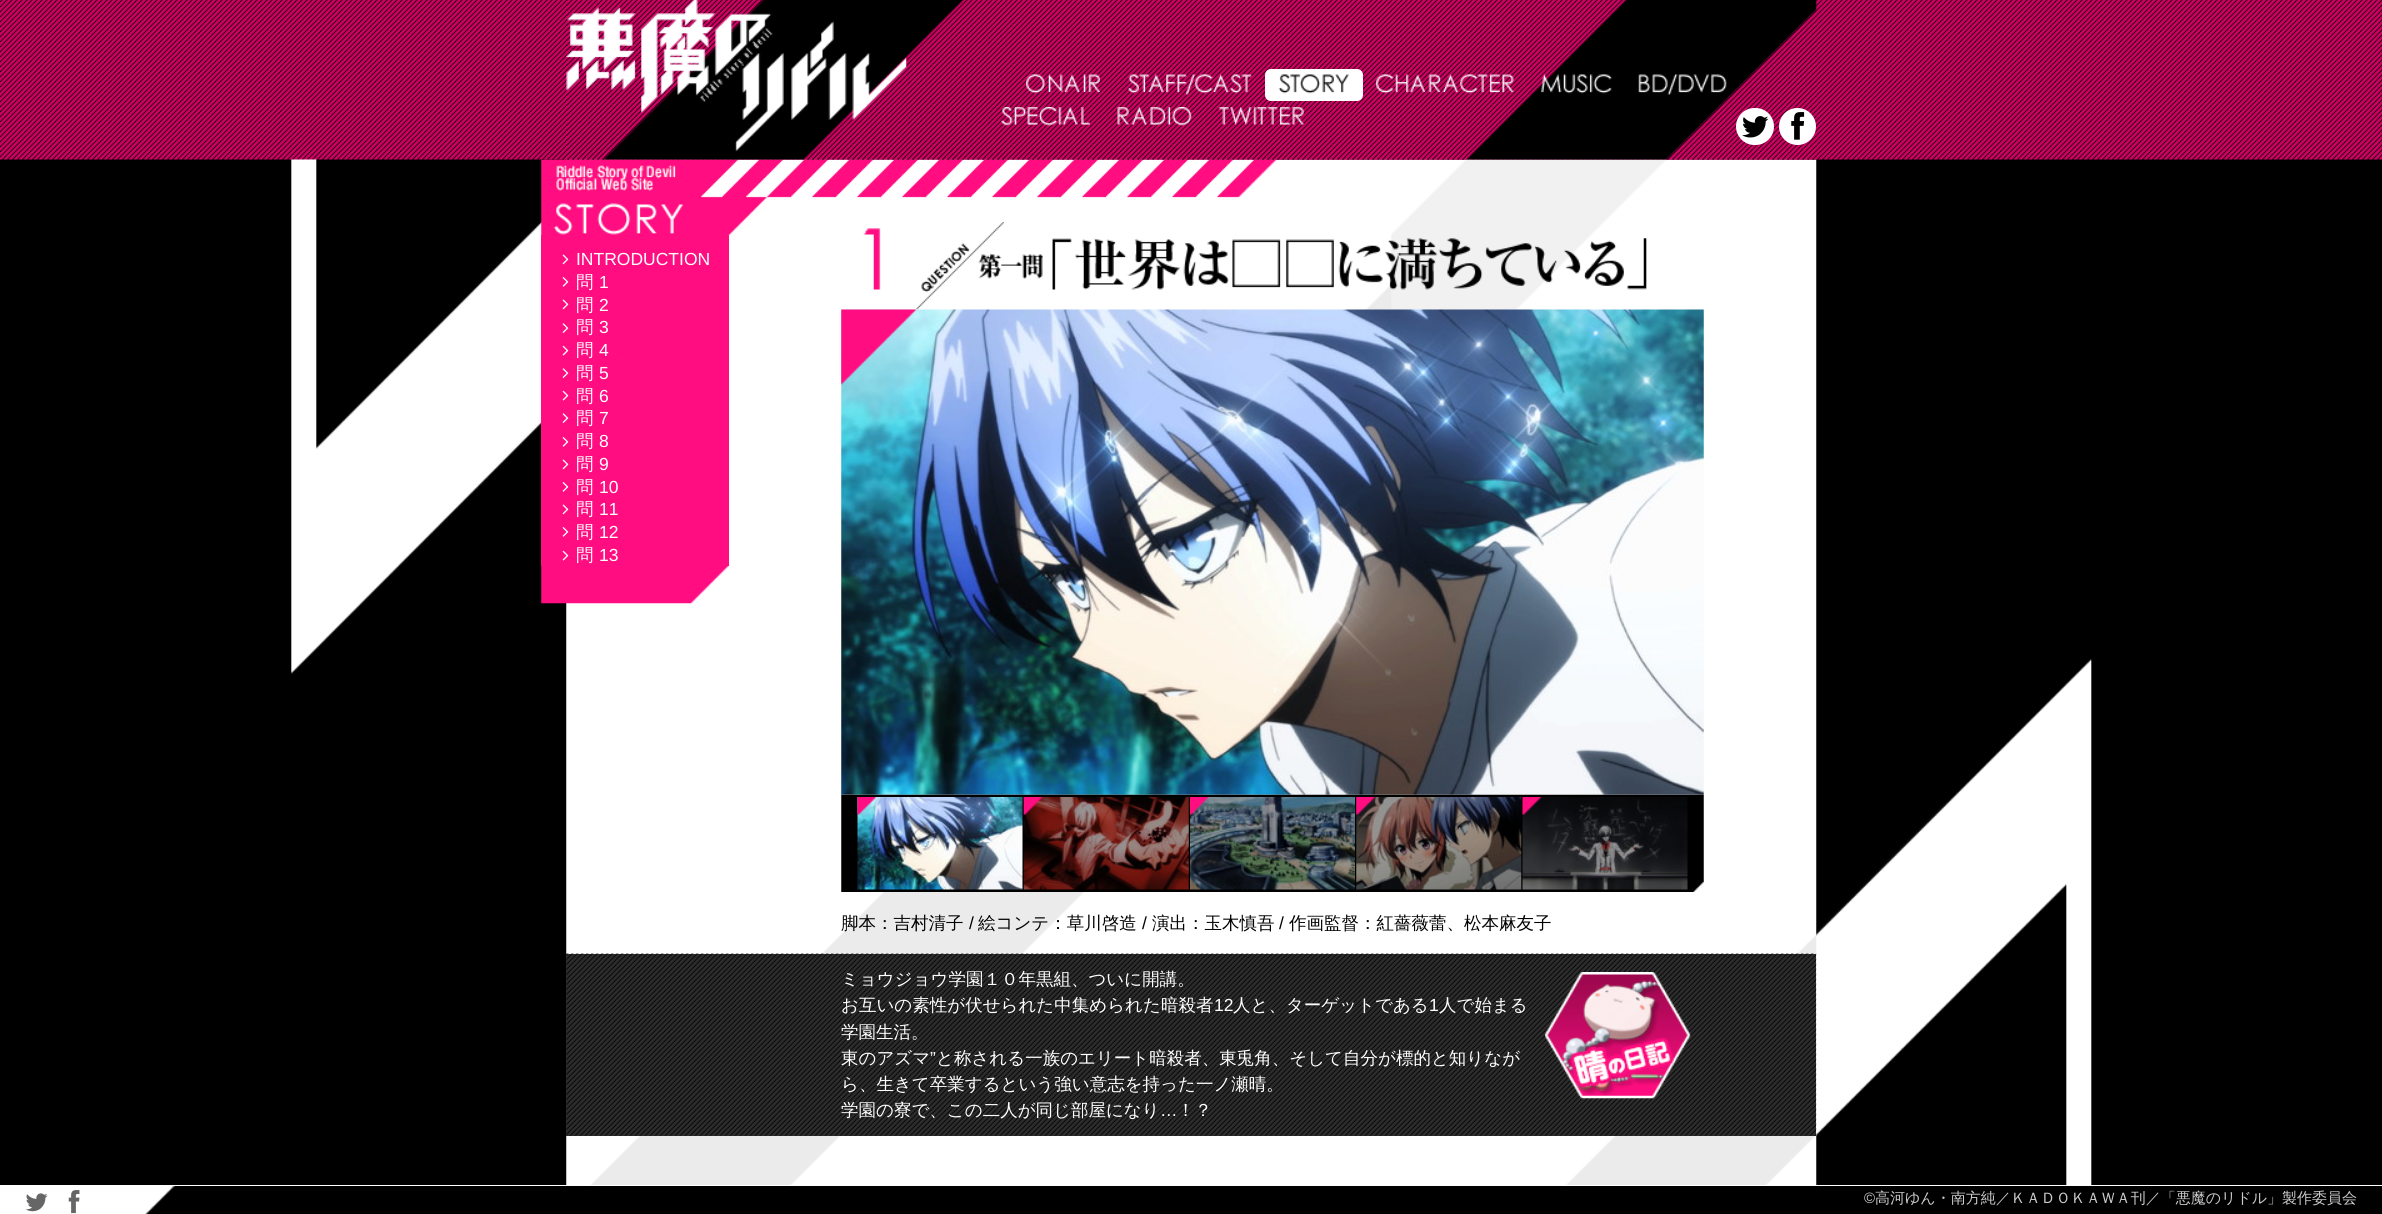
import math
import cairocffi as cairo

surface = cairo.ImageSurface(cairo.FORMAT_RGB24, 2382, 1214)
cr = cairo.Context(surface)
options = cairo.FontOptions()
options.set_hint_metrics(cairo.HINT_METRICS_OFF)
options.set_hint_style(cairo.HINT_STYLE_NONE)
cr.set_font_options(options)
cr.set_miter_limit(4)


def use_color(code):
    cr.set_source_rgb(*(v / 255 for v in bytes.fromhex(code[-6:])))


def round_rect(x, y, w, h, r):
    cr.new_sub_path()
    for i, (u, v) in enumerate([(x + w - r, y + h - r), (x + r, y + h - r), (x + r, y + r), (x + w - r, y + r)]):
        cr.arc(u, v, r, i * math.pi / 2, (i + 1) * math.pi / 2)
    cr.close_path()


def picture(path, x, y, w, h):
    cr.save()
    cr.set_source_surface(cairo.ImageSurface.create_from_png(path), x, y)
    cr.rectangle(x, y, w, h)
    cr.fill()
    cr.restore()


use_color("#000000")
cr.paint()
picture("img1.png", 561, 159, 1531, 1026)
picture("img2.png", 291, 159, 601, 515)
picture("img17.png", 566, 159, 1251, 1026)
picture("img18.png", 541, 159, 736, 76)
picture("img3.png", 0, 0, 2382, 160)
picture("img4.png", 566, 0, 1251, 160)
picture("img5.png", 566, 0, 341, 151)
picture("img6.png", 1026, 74, 74, 20)
picture("img7.png", 1127, 74, 125, 21)
use_color("#ffffff")
round_rect(1265, 69, 98, 32, 6)
cr.fill()
picture("img8.png", 1278, 74, 71, 20)
picture("img9.png", 1376, 74, 138, 20)
picture("img10.png", 1541, 74, 71, 20)
picture("img11.png", 1638, 74, 89, 21)
picture("img12.png", 1001, 107, 89, 19)
picture("img13.png", 1117, 107, 75, 19)
picture("img14.png", 1218, 107, 86, 18)
round_rect(1736, 108, 38, 37, 18.5)
cr.fill()
picture("img15.png", 1742, 116, 27, 22)
cr.arc(1797.5, 126.5, 18.5, 0, 2 * math.pi)
cr.fill()
picture("img16.png", 1791, 112, 14, 28)
picture("img19.png", 553, 203, 131, 32)
use_color("#ff0d81")
cr.rectangle(541, 235, 188, 331)
cr.fill()
picture("img20.png", 562, 254, 7, 11)
cr.select_font_face("Liberation Sans")
cr.set_font_size(17.5)
use_color("#ffffff")
cr.move_to(576, 265)
cr.show_text("INTRODUCTION")
picture("img21.png", 562, 277, 7, 10)
cr.select_font_face("WenQuanYi Zen Hei Medium")
cr.move_to(576, 288)
cr.show_text("問")
cr.select_font_face("Liberation Sans")
cr.move_to(599, 288)
cr.show_text("1")
picture("img20.png", 562, 299, 7, 11)
cr.select_font_face("WenQuanYi Zen Hei Medium")
cr.move_to(576, 311)
cr.show_text("問")
cr.select_font_face("Liberation Sans")
cr.move_to(599, 311)
cr.show_text("2")
picture("img22.png", 562, 323, 7, 10)
cr.select_font_face("WenQuanYi Zen Hei Medium")
cr.move_to(576, 333)
cr.show_text("問")
cr.select_font_face("Liberation Sans")
cr.move_to(599, 333)
cr.show_text("3")
picture("img23.png", 562, 345, 7, 11)
cr.select_font_face("WenQuanYi Zen Hei Medium")
cr.move_to(576, 356)
cr.show_text("問")
cr.select_font_face("Liberation Sans")
cr.move_to(599, 356)
cr.show_text("4")
picture("img22.png", 562, 368, 7, 10)
cr.select_font_face("WenQuanYi Zen Hei Medium")
cr.move_to(576, 379)
cr.show_text("問")
cr.select_font_face("Liberation Sans")
cr.move_to(599, 379)
cr.show_text("5")
picture("img23.png", 562, 390, 7, 11)
cr.select_font_face("WenQuanYi Zen Hei Medium")
cr.move_to(576, 402)
cr.show_text("問")
cr.select_font_face("Liberation Sans")
cr.move_to(599, 402)
cr.show_text("6")
picture("img22.png", 562, 413, 7, 10)
cr.select_font_face("WenQuanYi Zen Hei Medium")
cr.move_to(576, 424)
cr.show_text("問")
cr.select_font_face("Liberation Sans")
cr.move_to(599, 424)
cr.show_text("7")
picture("img21.png", 562, 437, 7, 10)
cr.select_font_face("WenQuanYi Zen Hei Medium")
cr.move_to(576, 447)
cr.show_text("問")
cr.select_font_face("Liberation Sans")
cr.move_to(599, 447)
cr.show_text("8")
picture("img20.png", 562, 459, 7, 11)
cr.select_font_face("WenQuanYi Zen Hei Medium")
cr.move_to(576, 470)
cr.show_text("問")
cr.select_font_face("Liberation Sans")
cr.move_to(599, 470)
cr.show_text("9")
picture("img21.png", 562, 482, 7, 10)
cr.select_font_face("WenQuanYi Zen Hei Medium")
cr.move_to(576, 493)
cr.show_text("問")
cr.select_font_face("Liberation Sans")
cr.move_to(599, 493)
cr.show_text("10")
picture("img20.png", 562, 504, 7, 11)
cr.select_font_face("WenQuanYi Zen Hei Medium")
cr.move_to(576, 515)
cr.show_text("問")
cr.select_font_face("Liberation Sans")
cr.move_to(599, 515)
cr.show_text("11")
picture("img21.png", 562, 527, 7, 10)
cr.select_font_face("WenQuanYi Zen Hei Medium")
cr.move_to(576, 538)
cr.show_text("問")
cr.select_font_face("Liberation Sans")
cr.move_to(599, 538)
cr.show_text("12")
picture("img23.png", 562, 550, 7, 11)
cr.select_font_face("WenQuanYi Zen Hei Medium")
cr.move_to(576, 561)
cr.show_text("問")
cr.select_font_face("Liberation Sans")
cr.move_to(599, 561)
cr.show_text("13")
picture("img24.png", 541, 566, 188, 38)
picture("img25.png", 863, 222, 784, 88)
picture("img28.png", 841, 794, 863, 98)
picture("img26.png", 841, 309, 863, 486)
picture("img27.png", 841, 309, 76, 76)
picture("img29.png", 857, 797, 166, 93)
picture("img30.png", 857, 797, 20, 18)
picture("img31.png", 1023, 797, 166, 93)
picture("img32.png", 1023, 797, 20, 18)
picture("img33.png", 1190, 797, 165, 93)
picture("img34.png", 1190, 797, 19, 18)
picture("img35.png", 1356, 797, 166, 93)
picture("img36.png", 1356, 797, 19, 18)
picture("img37.png", 1522, 797, 166, 93)
picture("img38.png", 1522, 797, 20, 18)
cr.select_font_face("WenQuanYi Zen Hei Medium")
use_color("#000000")
cr.move_to(841, 929)
cr.show_text("脚本：吉村清子")
cr.select_font_face("Liberation Sans")
cr.move_to(969, 929)
cr.show_text("/")
cr.select_font_face("WenQuanYi Zen Hei Medium")
cr.move_to(978, 929)
cr.show_text("絵コンテ：草川啓造")
cr.select_font_face("Liberation Sans")
cr.move_to(1142, 929)
cr.show_text("/")
cr.select_font_face("WenQuanYi Zen Hei Medium")
cr.move_to(1152, 929)
cr.show_text("演出：玉木慎吾")
cr.select_font_face("Liberation Sans")
cr.move_to(1279, 929)
cr.show_text("/")
cr.select_font_face("WenQuanYi Zen Hei Medium")
cr.move_to(1289, 929)
cr.show_text("作画監督：紅薔薇蕾、松本麻友子")
use_color("#2e2e2e")
cr.rectangle(566, 954, 1250, 182)
cr.fill()
picture("img39.png", 566, 953, 1251, 183)
use_color("#ffffff")
cr.move_to(841, 985)
cr.show_text("ミョウジョウ学園１０年黒組、ついに開講。")
cr.move_to(841, 1011)
cr.show_text("お互いの素性が伏せられた中集められた暗殺者")
cr.select_font_face("Liberation Sans")
cr.move_to(1214, 1011)
cr.show_text("12")
cr.select_font_face("WenQuanYi Zen Hei Medium")
cr.move_to(1233, 1011)
cr.show_text("人と、ターゲットである")
cr.select_font_face("Liberation Sans")
cr.move_to(1429, 1011)
cr.show_text("1")
cr.select_font_face("WenQuanYi Zen Hei Medium")
cr.move_to(1439, 1011)
cr.show_text("人で始まる")
cr.move_to(841, 1038)
cr.show_text("学園生活。")
cr.move_to(841, 1064)
cr.show_text("東のアズマ")
cr.select_font_face("Liberation Sans")
cr.move_to(930, 1064)
cr.show_text("”")
cr.select_font_face("WenQuanYi Zen Hei Medium")
cr.move_to(936, 1064)
cr.show_text("と称される一族のエリート暗殺者、東兎角、そして自分が標的と知りなが")
cr.move_to(841, 1090)
cr.show_text("ら、生きて卒業するという強い意志を持った一ノ瀬晴。")
cr.move_to(841, 1116)
cr.show_text("学園の寮で、この二人が同じ部屋になり")
cr.select_font_face("Liberation Sans")
cr.move_to(1160, 1116)
cr.show_text("…")
cr.select_font_face("WenQuanYi Zen Hei Medium")
cr.move_to(1177, 1116)
cr.show_text("！？")
picture("img40.png", 1545, 972, 146, 127)
cr.rectangle(0, 1185, 2382, 1)
cr.fill()
cr.rectangle(0, 1186, 175, 28)
cr.fill()
picture("img41.png", 145, 1186, 30, 28)
picture("img42.png", 25, 1193, 23, 19)
picture("img43.png", 68, 1190, 12, 24)
cr.select_font_face("Liberation Sans")
cr.set_font_size(15)
use_color("#cccccc")
cr.move_to(1864, 1203)
cr.show_text("©")
cr.select_font_face("WenQuanYi Zen Hei Medium")
cr.move_to(1875, 1203)
cr.show_text("高河ゆん・南方純／ＫＡＤＯＫＡＷＡ刊／「悪魔のリドル」製作委員会")
surface.write_to_png("result.png")
